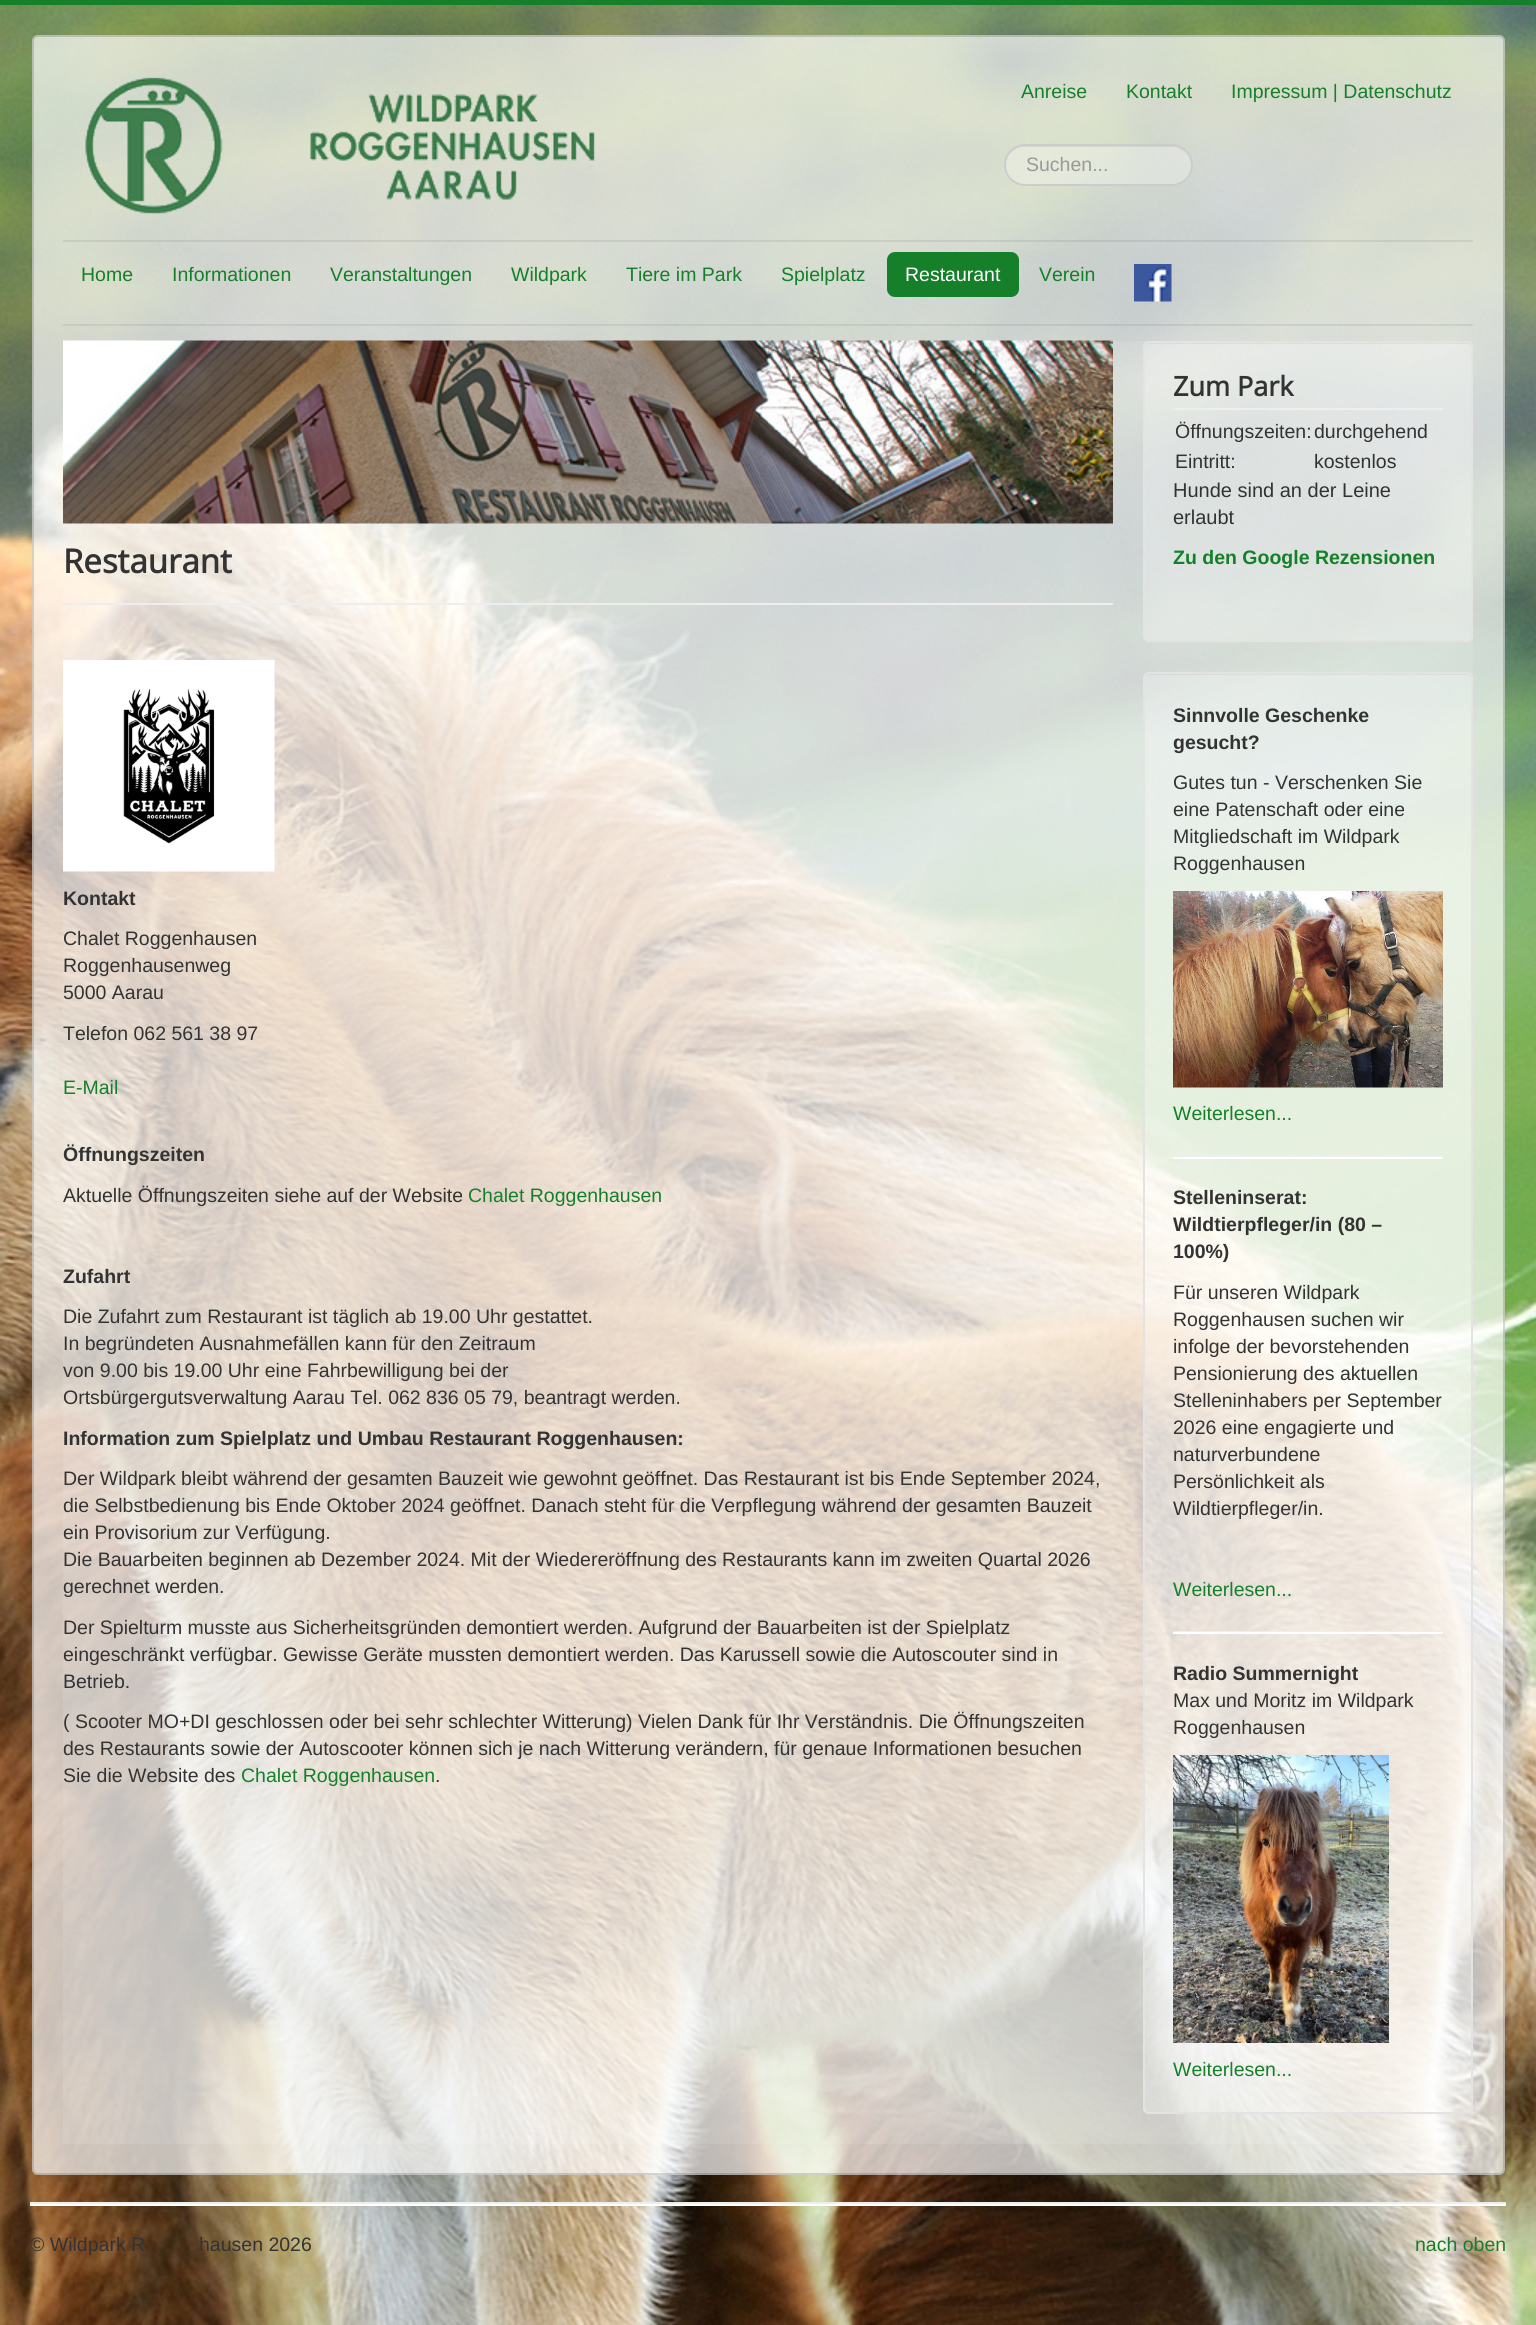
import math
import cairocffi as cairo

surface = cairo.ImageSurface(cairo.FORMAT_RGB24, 1536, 2325)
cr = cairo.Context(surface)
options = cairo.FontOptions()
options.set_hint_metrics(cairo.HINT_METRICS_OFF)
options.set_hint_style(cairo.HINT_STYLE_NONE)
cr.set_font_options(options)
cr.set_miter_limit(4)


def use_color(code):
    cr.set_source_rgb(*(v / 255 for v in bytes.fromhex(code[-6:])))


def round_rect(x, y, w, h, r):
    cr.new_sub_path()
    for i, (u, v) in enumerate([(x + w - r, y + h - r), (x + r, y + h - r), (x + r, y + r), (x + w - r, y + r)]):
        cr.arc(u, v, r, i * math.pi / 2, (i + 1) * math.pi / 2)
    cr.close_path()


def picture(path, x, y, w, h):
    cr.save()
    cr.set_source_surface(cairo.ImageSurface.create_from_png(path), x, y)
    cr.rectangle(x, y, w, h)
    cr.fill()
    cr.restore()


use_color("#ffffff")
cr.paint()
picture("img1.png", 0, 5, 1536, 2320)
use_color("#158029")
cr.rectangle(0, 0, 1536, 5)
cr.fill()
cr.set_source_rgba(1, 1, 1, 0.7)
round_rect(32, 35, 1473, 2140, 6)
cr.fill()
round_rect(33, 36, 1471, 2138, 5)
cr.set_source_rgba(0, 0, 0, 0.15)
cr.stroke()
picture("img2.png", 85, 77, 510, 137)
cr.select_font_face("Liberation Sans")
cr.set_font_size(19.5)
use_color("#158029")
cr.move_to(1021, 98)
cr.show_text("Anreise")
cr.move_to(1126, 98)
cr.show_text("Kontakt")
cr.move_to(1231, 98)
cr.show_text("Impressum | Datenschutz")
cr.set_source_rgba(1, 1, 1, 0.3)
round_rect(1004, 144, 189, 42, 21)
cr.fill()
cr.set_source_rgba(0, 0, 0, 0.07)
cr.new_path()
cr.move_to(1024, 147)
cr.line_to(1172, 147)
cr.curve_to(1182, 147, 1191, 156, 1191, 166)
cr.curve_to(1191, 155, 1182, 146, 1172, 146)
cr.line_to(1024, 146)
cr.curve_to(1014, 146, 1005, 155, 1005, 166)
cr.curve_to(1005, 156, 1014, 147, 1024, 147)
cr.close_path()
cr.fill()
round_rect(1005, 145, 187, 40, 20)
use_color("#cccccc")
cr.stroke()
use_color("#999999")
cr.move_to(1026, 171)
cr.show_text("Suchen...")
cr.set_source_rgba(0, 0, 0, 0.07)
cr.rectangle(63, 240, 1410, 2)
cr.fill()
cr.rectangle(63, 324, 1410, 2)
cr.fill()
use_color("#158029")
cr.move_to(81, 281)
cr.show_text("Home")
cr.move_to(172, 281)
cr.show_text("Informationen")
cr.move_to(330, 281)
cr.show_text("Veranstaltungen")
cr.move_to(511, 281)
cr.show_text("Wildpark")
cr.move_to(626, 281)
cr.show_text("Tiere im Park")
cr.move_to(781, 281)
cr.show_text("Spielplatz")
round_rect(887, 252, 132, 45, 8)
cr.fill()
use_color("#ffffff")
cr.move_to(905, 281)
cr.show_text("Restaurant")
use_color("#158029")
cr.move_to(1039, 281)
cr.show_text("Verein")
picture("img3.png", 1134, 264, 38, 38)
cr.set_source_rgba(1, 1, 1, 0.1)
cr.rectangle(63, 341, 1410, 1803)
cr.fill()
picture("img4.png", 63, 340, 1050, 184)
use_color("#eeeeee")
cr.rectangle(63, 603, 1050, 2)
cr.fill()
cr.select_font_face("Open Sans", cairo.FONT_SLANT_NORMAL, cairo.FONT_WEIGHT_BOLD)
cr.set_font_size(33)
use_color("#333333")
cr.move_to(63, 573)
cr.show_text("Restaurant")
picture("img5.png", 63, 660, 212, 212)
cr.select_font_face("Liberation Sans", cairo.FONT_SLANT_NORMAL, cairo.FONT_WEIGHT_BOLD)
cr.set_font_size(19.5)
cr.move_to(63, 905)
cr.show_text("Kontakt")
cr.select_font_face("Liberation Sans")
cr.move_to(63, 945)
cr.show_text("Chalet Roggenhausen")
cr.move_to(63, 972)
cr.show_text("Roggenhausenweg")
cr.move_to(63, 999)
cr.show_text("5000 Aarau")
cr.move_to(63, 1040)
cr.show_text("Telefon 062 561 38 97")
use_color("#158029")
cr.move_to(63, 1094)
cr.show_text("E-Mail")
cr.select_font_face("Liberation Sans", cairo.FONT_SLANT_NORMAL, cairo.FONT_WEIGHT_BOLD)
use_color("#333333")
cr.move_to(63, 1161)
cr.show_text("Öffnungszeiten")
cr.select_font_face("Liberation Sans")
cr.move_to(63, 1202)
cr.show_text("Aktuelle Öffnungszeiten siehe auf der Website")
use_color("#158029")
cr.move_to(468, 1202)
cr.show_text("Chalet Roggenhausen")
cr.select_font_face("Liberation Sans", cairo.FONT_SLANT_NORMAL, cairo.FONT_WEIGHT_BOLD)
use_color("#333333")
cr.move_to(63, 1283)
cr.show_text("Zufahrt")
cr.select_font_face("Liberation Sans")
cr.move_to(63, 1323)
cr.show_text("Die Zufahrt zum Restaurant ist täglich ab 19.00 Uhr gestattet.")
cr.move_to(63, 1350)
cr.show_text("In begründeten Ausnahmefällen kann für den Zeitraum")
cr.move_to(63, 1377)
cr.show_text("von 9.00 bis 19.00 Uhr eine Fahrbewilligung bei der")
cr.move_to(63, 1404)
cr.show_text("Ortsbürgergutsverwaltung Aarau Tel. 062 836 05 79, beantragt werden.")
cr.select_font_face("Liberation Sans", cairo.FONT_SLANT_NORMAL, cairo.FONT_WEIGHT_BOLD)
cr.move_to(63, 1445)
cr.show_text("Information zum Spielplatz und Umbau Restaurant Roggenhausen:")
cr.select_font_face("Liberation Sans")
cr.move_to(63, 1485)
cr.show_text("Der Wildpark bleibt während der gesamten Bauzeit wie gewohnt geöffnet. Das Restaurant ist bis Ende September 2024,")
cr.move_to(63, 1512)
cr.show_text("die Selbstbedienung bis Ende Oktober 2024 geöffnet. Danach steht für die Verpflegung während der gesamten Bauzeit")
cr.move_to(63, 1539)
cr.show_text("ein Provisorium zur Verfügung.")
cr.move_to(63, 1566)
cr.show_text("Die Bauarbeiten beginnen ab Dezember 2024. Mit der Wiedereröffnung des Restaurants kann im zweiten Quartal 2026")
cr.move_to(63, 1593)
cr.show_text("gerechnet werden.")
cr.move_to(63, 1634)
cr.show_text("Der Spielturm musste aus Sicherheitsgründen demontiert werden. Aufgrund der Bauarbeiten ist der Spielplatz")
cr.move_to(63, 1661)
cr.show_text("eingeschränkt verfügbar. Gewisse Geräte mussten demontiert werden. Das Karussell sowie die Autoscouter sind in")
cr.move_to(63, 1688)
cr.show_text("Betrieb.")
cr.move_to(63, 1728)
cr.show_text("( Scooter MO+DI geschlossen oder bei sehr schlechter Witterung) Vielen Dank für Ihr Verständnis. Die Öffnungszeiten")
cr.move_to(63, 1755)
cr.show_text("des Restaurants sowie der Autoscooter können sich je nach Witterung verändern, für genaue Informationen besuchen")
cr.move_to(63, 1782)
cr.show_text("Sie die Website des")
use_color("#158029")
cr.move_to(241, 1782)
cr.show_text("Chalet Roggenhausen")
use_color("#333333")
cr.move_to(435, 1782)
cr.show_text(".")
cr.set_source_rgba(1, 1, 1, 0.3)
round_rect(1143, 341, 330, 301, 6)
cr.fill()
cr.set_source_rgba(0, 0, 0, 0.05)
cr.new_path()
cr.move_to(1149, 344)
cr.line_to(1467, 344)
cr.curve_to(1469, 344, 1472, 346, 1472, 348)
cr.line_to(1472, 347)
cr.curve_to(1472, 344, 1470, 342, 1467, 342)
cr.line_to(1150, 342)
cr.curve_to(1148, 342, 1146, 344, 1145, 346)
cr.curve_to(1146, 345, 1148, 344, 1149, 344)
cr.close_path()
cr.fill()
round_rect(1144, 342, 328, 299, 5)
use_color("#e3e3e3")
cr.stroke()
use_color("#eeeeee")
cr.rectangle(1173, 408, 270, 2)
cr.fill()
cr.select_font_face("Open Sans", cairo.FONT_SLANT_NORMAL, cairo.FONT_WEIGHT_BOLD)
cr.set_font_size(27)
use_color("#333333")
cr.move_to(1173, 396)
cr.show_text("Zum Park")
cr.select_font_face("Liberation Sans")
cr.set_font_size(19.5)
cr.move_to(1175, 438)
cr.show_text("Öffnungszeiten:")
cr.move_to(1314, 438)
cr.show_text("durchgehend")
cr.move_to(1175, 468)
cr.show_text("Eintritt:")
cr.move_to(1314, 468)
cr.show_text("kostenlos")
cr.set_font_size(20)
cr.move_to(1173, 497)
cr.show_text("Hunde sind an der Leine")
cr.move_to(1173, 524)
cr.show_text("erlaubt")
cr.select_font_face("Liberation Sans", cairo.FONT_SLANT_NORMAL, cairo.FONT_WEIGHT_BOLD)
cr.set_font_size(19.5)
use_color("#158029")
cr.move_to(1173, 564)
cr.show_text("Zu den Google Rezensionen")
cr.set_source_rgba(1, 1, 1, 0.3)
round_rect(1143, 672, 330, 1442, 6)
cr.fill()
cr.set_source_rgba(0, 0, 0, 0.05)
cr.new_path()
cr.move_to(1149, 675)
cr.line_to(1467, 675)
cr.curve_to(1469, 675, 1472, 677, 1472, 680)
cr.line_to(1472, 679)
cr.curve_to(1472, 676, 1470, 674, 1467, 674)
cr.line_to(1150, 674)
cr.curve_to(1148, 674, 1147, 675, 1146, 676)
cr.close_path()
cr.fill()
round_rect(1144, 673, 328, 1440, 5)
use_color("#e3e3e3")
cr.stroke()
use_color("#333333")
cr.move_to(1173, 722)
cr.show_text("Sinnvolle Geschenke")
cr.move_to(1173, 749)
cr.show_text("gesucht?")
cr.select_font_face("Liberation Sans")
cr.move_to(1173, 789)
cr.show_text("Gutes tun - Verschenken Sie")
cr.move_to(1173, 816)
cr.show_text("eine Patenschaft oder eine")
cr.move_to(1173, 843)
cr.show_text("Mitgliedschaft im Wildpark")
cr.move_to(1173, 870)
cr.show_text("Roggenhausen")
picture("img6.png", 1173, 891, 270, 197)
use_color("#158029")
cr.move_to(1173, 1120)
cr.show_text("Weiterlesen...")
use_color("#eeeeee")
cr.rectangle(1173, 1155, 270, 2)
cr.fill()
use_color("#ffffff")
cr.rectangle(1173, 1157, 270, 2)
cr.fill()
cr.select_font_face("Liberation Sans", cairo.FONT_SLANT_NORMAL, cairo.FONT_WEIGHT_BOLD)
use_color("#333333")
cr.move_to(1173, 1204)
cr.show_text("Stelleninserat:")
cr.move_to(1173, 1231)
cr.show_text("Wildtierpfleger/in (80 –")
cr.move_to(1173, 1258)
cr.show_text("100%)")
cr.select_font_face("Liberation Sans")
cr.move_to(1173, 1299)
cr.show_text("Für unseren Wildpark")
cr.move_to(1173, 1326)
cr.show_text("Roggenhausen suchen wir")
cr.move_to(1173, 1353)
cr.show_text("infolge der bevorstehenden")
cr.move_to(1173, 1380)
cr.show_text("Pensionierung des aktuellen")
cr.move_to(1173, 1407)
cr.show_text("Stelleninhabers per September")
cr.move_to(1173, 1434)
cr.show_text("2026 eine engagierte und")
cr.move_to(1173, 1461)
cr.show_text("naturverbundene")
cr.move_to(1173, 1488)
cr.show_text("Persönlichkeit als")
cr.move_to(1173, 1515)
cr.show_text("Wildtierpfleger/in.")
use_color("#158029")
cr.move_to(1173, 1596)
cr.show_text("Weiterlesen...")
use_color("#eeeeee")
cr.rectangle(1173, 1631, 270, 1)
cr.fill()
use_color("#ffffff")
cr.rectangle(1173, 1632, 270, 2)
cr.fill()
cr.select_font_face("Liberation Sans", cairo.FONT_SLANT_NORMAL, cairo.FONT_WEIGHT_BOLD)
use_color("#333333")
cr.move_to(1173, 1680)
cr.show_text("Radio Summernight")
cr.select_font_face("Liberation Sans")
cr.move_to(1173, 1707)
cr.show_text("Max und Moritz im Wildpark")
cr.move_to(1173, 1734)
cr.show_text("Roggenhausen")
picture("img7.png", 1173, 1755, 216, 288)
use_color("#158029")
cr.move_to(1173, 2076)
cr.show_text("Weiterlesen...")
use_color("#eeeeee")
cr.rectangle(30, 2202, 1476, 2)
cr.fill()
use_color("#ffffff")
cr.rectangle(30, 2204, 1476, 2)
cr.fill()
use_color("#333333")
cr.move_to(30, 2251)
cr.show_text("© Wildpark R")
cr.move_to(199, 2251)
cr.show_text("hausen 2026")
use_color("#158029")
cr.move_to(1415, 2251)
cr.show_text("nach oben")
surface.write_to_png("result.png")
